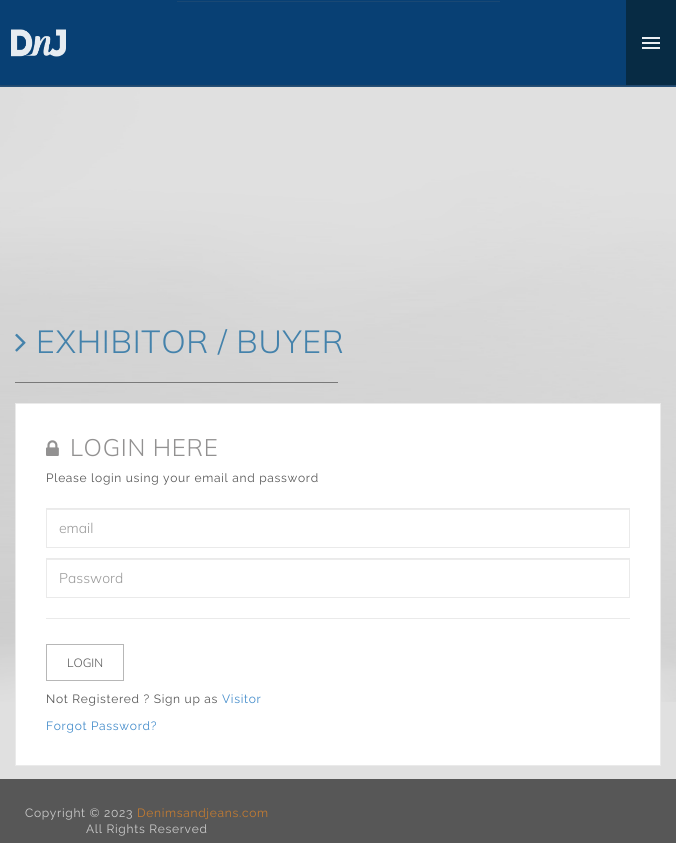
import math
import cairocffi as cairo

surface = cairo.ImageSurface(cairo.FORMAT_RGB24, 676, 843)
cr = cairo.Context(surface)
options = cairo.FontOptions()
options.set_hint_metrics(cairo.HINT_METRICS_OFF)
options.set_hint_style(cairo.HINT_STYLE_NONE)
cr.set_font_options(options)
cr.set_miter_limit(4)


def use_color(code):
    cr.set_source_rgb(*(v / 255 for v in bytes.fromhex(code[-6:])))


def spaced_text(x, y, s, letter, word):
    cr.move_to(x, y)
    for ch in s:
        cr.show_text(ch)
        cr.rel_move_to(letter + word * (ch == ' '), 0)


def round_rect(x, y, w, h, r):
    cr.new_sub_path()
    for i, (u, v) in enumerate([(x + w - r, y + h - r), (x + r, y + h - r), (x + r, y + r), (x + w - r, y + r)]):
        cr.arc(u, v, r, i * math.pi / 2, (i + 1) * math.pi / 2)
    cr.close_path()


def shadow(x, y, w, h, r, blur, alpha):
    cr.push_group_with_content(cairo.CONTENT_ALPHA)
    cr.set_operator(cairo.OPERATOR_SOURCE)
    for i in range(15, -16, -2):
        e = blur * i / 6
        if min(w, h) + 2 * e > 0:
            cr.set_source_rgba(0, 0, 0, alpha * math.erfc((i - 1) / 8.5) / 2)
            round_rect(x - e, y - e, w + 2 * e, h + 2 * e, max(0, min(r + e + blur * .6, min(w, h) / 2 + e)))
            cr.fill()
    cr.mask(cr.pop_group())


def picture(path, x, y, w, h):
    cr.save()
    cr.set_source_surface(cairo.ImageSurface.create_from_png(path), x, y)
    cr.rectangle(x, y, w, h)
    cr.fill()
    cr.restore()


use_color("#ffffff")
cr.paint()
picture("img1.png", 0, 0, 676, 779)
cr.set_source_rgba(0, 0.227, 0.439, 0.81)
cr.rectangle(0, 0, 676, 87)
cr.fill()
use_color("#838383")
cr.rectangle(177, 1, 323, 1)
cr.fill()
cr.save()
cr.rectangle(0, 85, 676, 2)
cr.clip()
use_color("#000000")
shadow(0, 1, 676, 85, 0, 1, 0.27)
cr.restore()
cr.set_source_rgba(0, 0.227, 0.439, 0.81)
cr.rectangle(0, 0, 626, 85)
cr.fill()
picture("img2.png", 11, 29, 55, 28)
use_color("#072b44")
cr.rectangle(626, 0, 50, 85)
cr.fill()
use_color("#eaeef3")
cr.rectangle(642, 42, 18, 2)
cr.fill()
cr.rectangle(642, 37, 18, 2)
cr.fill()
cr.rectangle(642, 47, 18, 2)
cr.fill()
picture("img3.png", 15, 333, 11, 19)
cr.select_font_face("Mulish Light")
cr.set_font_size(32)
use_color("#4482ab")
spaced_text(36, 353, "EXHIBITOR / BUYER", 0.7, 0)
use_color("#797979")
cr.rectangle(15, 382, 323, 1)
cr.fill()
use_color("#ffffff")
cr.rectangle(15.5, 403.5, 645, 362)
cr.fill_preserve()
use_color("#eaeaea")
cr.set_line_width(1)
cr.stroke()
picture("img4.png", 46, 440, 13, 16)
cr.set_font_size(24)
use_color("#929191")
spaced_text(70, 456, "LOGIN HERE", 0.7, 0)
cr.select_font_face("Raleway")
cr.set_font_size(12)
use_color("#565656")
spaced_text(46, 482, "Please login using your email and password", 0.7, 0)
use_color("#ececec")
cr.rectangle(47, 509, 582, 1)
cr.fill()
cr.rectangle(46.5, 508.5, 583, 39)
use_color("#eaeaea")
cr.stroke()
cr.select_font_face("Mulish Light")
cr.set_font_size(14)
use_color("#999999")
cr.move_to(59, 533)
cr.show_text("email")
use_color("#ececec")
cr.rectangle(47, 559, 582, 1)
cr.fill()
cr.rectangle(46.5, 558.5, 583, 39)
use_color("#eaeaea")
cr.stroke()
use_color("#999999")
cr.move_to(59, 583)
cr.show_text("Password")
use_color("#eaeaea")
cr.rectangle(46, 618, 584, 1)
cr.fill()
cr.rectangle(46.5, 644.5, 77, 36)
use_color("#b7b7b7")
cr.stroke()
cr.set_font_size(12)
use_color("#565656")
cr.move_to(67, 667)
cr.show_text("LOGIN")
cr.select_font_face("Raleway")
spaced_text(46, 703, "Not Registered ? Sign up as", 0.7, 0)
use_color("#428bca")
spaced_text(222, 703, "Visitor", 0.7, 0)
spaced_text(46, 730, "Forgot Password?", 0.7, 0)
use_color("#575757")
cr.rectangle(0, 779, 676, 64)
cr.fill()
use_color("#cccccc")
spaced_text(25, 817, "Copyright © 2023", 0.7, 0)
use_color("#c47b30")
spaced_text(137, 817, "Denimsandjeans.com", 0.7, 0)
use_color("#cccccc")
spaced_text(86, 833, "All Rights Reserved", 0.7, 0)
surface.write_to_png("result.png")
